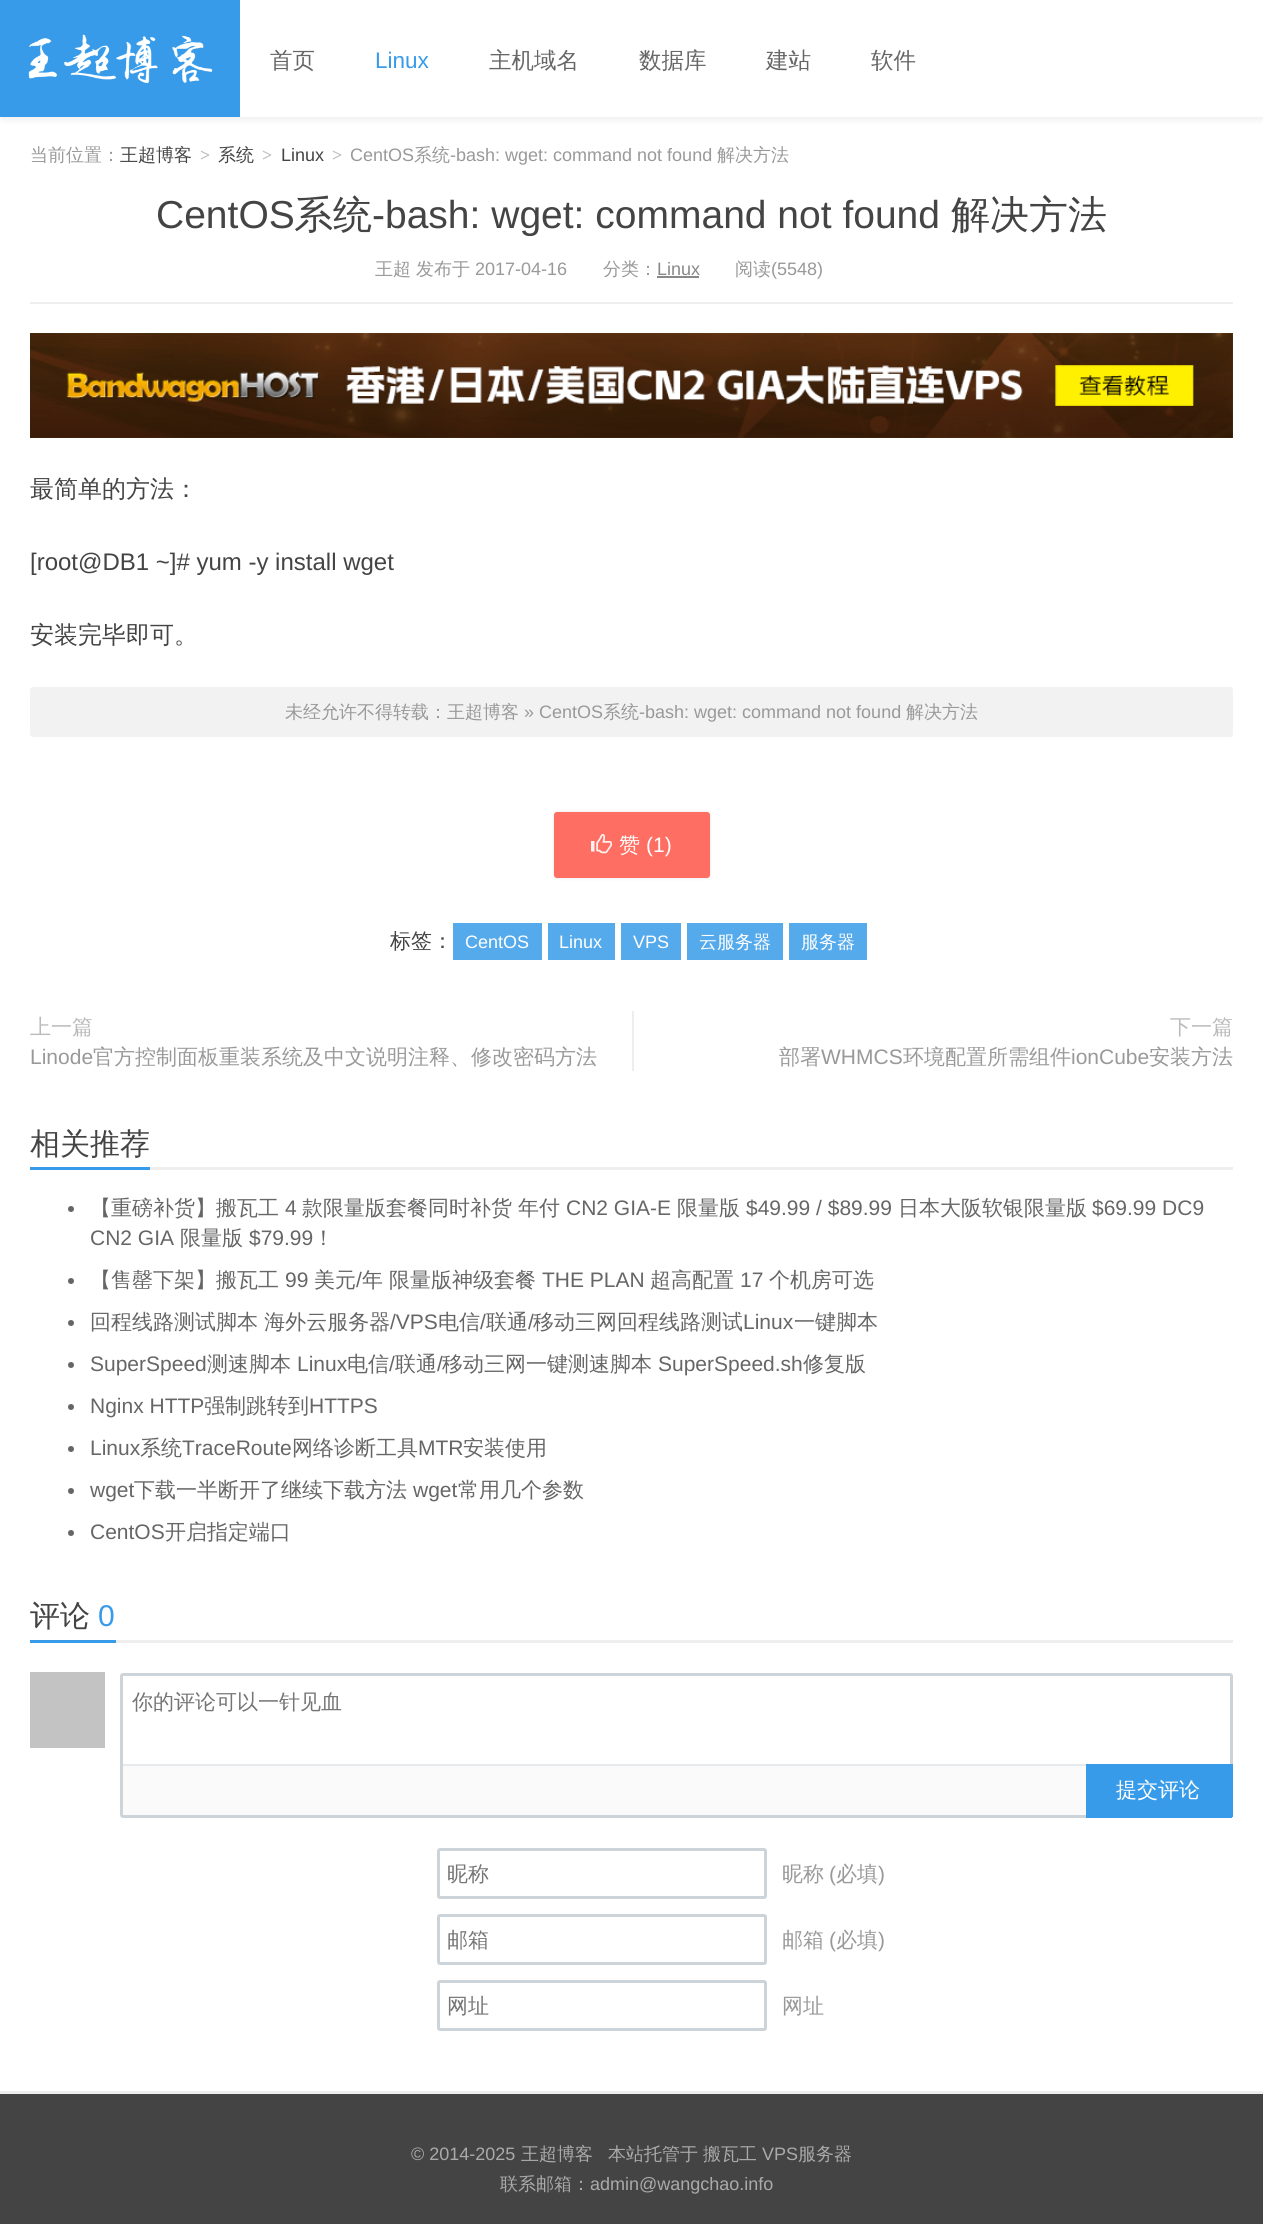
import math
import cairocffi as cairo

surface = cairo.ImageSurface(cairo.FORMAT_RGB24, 1263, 2224)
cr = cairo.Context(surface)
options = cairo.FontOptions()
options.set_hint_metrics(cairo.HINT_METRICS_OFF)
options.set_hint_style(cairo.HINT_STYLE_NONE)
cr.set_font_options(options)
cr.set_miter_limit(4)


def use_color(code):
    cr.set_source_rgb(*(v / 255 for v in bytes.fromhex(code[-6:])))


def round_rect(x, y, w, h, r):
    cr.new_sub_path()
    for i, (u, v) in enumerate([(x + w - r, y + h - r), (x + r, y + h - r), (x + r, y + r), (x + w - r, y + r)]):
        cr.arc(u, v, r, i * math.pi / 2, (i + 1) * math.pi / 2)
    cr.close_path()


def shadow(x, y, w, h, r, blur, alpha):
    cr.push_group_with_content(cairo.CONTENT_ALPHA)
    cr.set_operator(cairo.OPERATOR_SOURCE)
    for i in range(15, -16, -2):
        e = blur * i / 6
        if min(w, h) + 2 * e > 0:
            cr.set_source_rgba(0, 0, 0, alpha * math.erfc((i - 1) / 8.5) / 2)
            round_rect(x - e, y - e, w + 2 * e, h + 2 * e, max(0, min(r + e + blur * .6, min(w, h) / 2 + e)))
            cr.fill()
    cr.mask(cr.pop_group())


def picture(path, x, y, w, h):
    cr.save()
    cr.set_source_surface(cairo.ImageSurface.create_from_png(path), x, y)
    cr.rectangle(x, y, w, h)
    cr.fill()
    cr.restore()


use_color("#ffffff")
cr.paint()
use_color("#000000")
shadow(2, 2, 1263, 117, 0, 4, 0.08)
use_color("#ffffff")
cr.rectangle(240, 0, 1023, 117)
cr.fill()
use_color("#379be9")
cr.rectangle(0, 0, 240, 117)
cr.fill()
picture("img1.png", 28, 34, 185, 49)
cr.select_font_face("WenQuanYi Zen Hei Medium")
cr.set_font_size(22.5)
use_color("#666666")
cr.move_to(270, 68)
cr.show_text("首页")
cr.select_font_face("Liberation Sans")
use_color("#379be9")
cr.move_to(375, 68)
cr.show_text("Linux")
cr.select_font_face("WenQuanYi Zen Hei Medium")
use_color("#666666")
cr.move_to(489, 68)
cr.show_text("主机域名")
cr.move_to(639, 68)
cr.show_text("数据库")
cr.move_to(766, 68)
cr.show_text("建站")
cr.move_to(871, 68)
cr.show_text("软件")
use_color("#eeeeee")
cr.rectangle(30, 302, 1203, 2)
cr.fill()
cr.set_font_size(18)
use_color("#999999")
cr.move_to(30, 161)
cr.show_text("当前位置：")
use_color("#444444")
cr.move_to(120, 161)
cr.show_text("王超博客")
cr.select_font_face("Liberation Serif", cairo.FONT_SLANT_NORMAL, cairo.FONT_WEIGHT_BOLD)
use_color("#bbbbbb")
cr.move_to(200, 161)
cr.show_text(">")
cr.select_font_face("WenQuanYi Zen Hei Medium")
use_color("#444444")
cr.move_to(218, 161)
cr.show_text("系统")
cr.select_font_face("Liberation Serif", cairo.FONT_SLANT_NORMAL, cairo.FONT_WEIGHT_BOLD)
use_color("#bbbbbb")
cr.move_to(262, 161)
cr.show_text(">")
cr.select_font_face("Liberation Sans")
use_color("#444444")
cr.move_to(281, 161)
cr.show_text("Linux")
cr.select_font_face("Liberation Serif", cairo.FONT_SLANT_NORMAL, cairo.FONT_WEIGHT_BOLD)
use_color("#bbbbbb")
cr.move_to(332, 161)
cr.show_text(">")
cr.select_font_face("Liberation Sans")
use_color("#999999")
cr.move_to(350, 161)
cr.show_text("CentOS")
cr.select_font_face("WenQuanYi Zen Hei Medium")
cr.move_to(414, 161)
cr.show_text("系统")
cr.select_font_face("Liberation Sans")
cr.move_to(450, 161)
cr.show_text("-bash: wget: command not found")
cr.select_font_face("WenQuanYi Zen Hei Medium")
cr.move_to(717, 161)
cr.show_text("解决方法")
cr.select_font_face("Liberation Sans")
cr.set_font_size(39)
use_color("#444444")
cr.move_to(156, 228)
cr.show_text("CentOS")
cr.select_font_face("WenQuanYi Zen Hei Medium")
cr.move_to(294, 228)
cr.show_text("系统")
cr.select_font_face("Liberation Sans")
cr.move_to(372, 228)
cr.show_text("-bash: wget: command not found")
cr.select_font_face("WenQuanYi Zen Hei Medium")
cr.move_to(951, 228)
cr.show_text("解决方法")
cr.set_font_size(18)
use_color("#999999")
cr.move_to(375, 275)
cr.show_text("王超")
cr.move_to(416, 275)
cr.show_text("发布于")
cr.select_font_face("Liberation Sans")
cr.move_to(475, 275)
cr.show_text("2017-04-16")
cr.select_font_face("WenQuanYi Zen Hei Medium")
cr.move_to(603, 275)
cr.show_text("分类：")
cr.select_font_face("Liberation Sans")
use_color("#888888")
cr.move_to(657, 275)
cr.show_text("Linux")
cr.rectangle(657, 276, 42, 2)
cr.fill()
cr.select_font_face("WenQuanYi Zen Hei Medium")
use_color("#999999")
cr.move_to(735, 275)
cr.show_text("阅读")
cr.select_font_face("Liberation Sans")
cr.move_to(771, 275)
cr.show_text("(5548)")
picture("img2.png", 30, 333, 1203, 105)
cr.select_font_face("WenQuanYi Zen Hei Medium")
cr.set_font_size(24)
use_color("#444444")
cr.move_to(30, 497)
cr.show_text("最简单的方法：")
cr.select_font_face("Liberation Sans")
cr.move_to(30, 570)
cr.show_text("[root@DB1 ~]# yum -y install wget")
cr.select_font_face("WenQuanYi Zen Hei Medium")
cr.move_to(30, 643)
cr.show_text("安装完毕即可。")
use_color("#f2f2f2")
round_rect(30, 687, 1203, 50, 3)
cr.fill()
cr.set_font_size(18)
use_color("#999999")
cr.move_to(285, 718)
cr.show_text("未经允许不得转载：王超博客")
cr.select_font_face("Liberation Sans")
cr.move_to(524, 718)
cr.show_text("» CentOS")
cr.select_font_face("WenQuanYi Zen Hei Medium")
cr.move_to(603, 718)
cr.show_text("系统")
cr.select_font_face("Liberation Sans")
cr.move_to(639, 718)
cr.show_text("-bash: wget: command not found")
cr.select_font_face("WenQuanYi Zen Hei Medium")
cr.move_to(906, 718)
cr.show_text("解决方法")
use_color("#1a1a1a")
shadow(554, 812, 156, 66, 3, 1.5, 0.12)
use_color("#ff6e63")
round_rect(554, 812, 156, 66, 3)
cr.fill()
picture("img3.png", 591, 834, 21, 20)
cr.set_font_size(21)
use_color("#ffffff")
cr.move_to(619, 852)
cr.show_text("赞")
cr.select_font_face("Liberation Sans")
cr.move_to(646, 852)
cr.show_text("(1)")
cr.select_font_face("WenQuanYi Zen Hei Medium")
use_color("#444444")
cr.move_to(390, 948)
cr.show_text("标签：")
use_color("#55aaec")
cr.rectangle(453, 923, 89, 37)
cr.fill()
cr.select_font_face("Liberation Sans")
cr.set_font_size(18)
use_color("#ffffff")
cr.move_to(465, 948)
cr.show_text("CentOS")
use_color("#55aaec")
cr.rectangle(548, 923, 67, 37)
cr.fill()
use_color("#ffffff")
cr.move_to(559, 948)
cr.show_text("Linux")
use_color("#55aaec")
cr.rectangle(621, 923, 60, 37)
cr.fill()
use_color("#ffffff")
cr.move_to(633, 948)
cr.show_text("VPS")
use_color("#55aaec")
cr.rectangle(687, 923, 96, 37)
cr.fill()
cr.select_font_face("WenQuanYi Zen Hei Medium")
use_color("#ffffff")
cr.move_to(699, 948)
cr.show_text("云服务器")
use_color("#55aaec")
cr.rectangle(789, 923, 78, 37)
cr.fill()
use_color("#ffffff")
cr.move_to(801, 948)
cr.show_text("服务器")
cr.set_font_size(21)
use_color("#bbbbbb")
cr.move_to(30, 1034)
cr.show_text("上一篇")
use_color("#eeeeee")
cr.rectangle(632, 1011, 2, 60)
cr.fill()
cr.select_font_face("Liberation Sans")
use_color("#999999")
cr.move_to(30, 1064)
cr.show_text("Linode")
cr.select_font_face("WenQuanYi Zen Hei Medium")
cr.move_to(93, 1064)
cr.show_text("官方控制面板重装系统及中文说明注释、修改密码方法")
use_color("#bbbbbb")
cr.move_to(1170, 1034)
cr.show_text("下一篇")
use_color("#999999")
cr.move_to(779, 1064)
cr.show_text("部署")
cr.select_font_face("Liberation Sans")
cr.move_to(821, 1064)
cr.show_text("WHMCS")
cr.select_font_face("WenQuanYi Zen Hei Medium")
cr.move_to(903, 1064)
cr.show_text("环境配置所需组件")
cr.select_font_face("Liberation Sans")
cr.move_to(1071, 1064)
cr.show_text("ionCube")
cr.select_font_face("WenQuanYi Zen Hei Medium")
cr.move_to(1149, 1064)
cr.show_text("安装方法")
use_color("#eeeeee")
cr.rectangle(150, 1167, 1083, 3)
cr.fill()
use_color("#379be9")
cr.rectangle(30, 1167, 120, 3)
cr.fill()
cr.set_font_size(30)
use_color("#444444")
cr.move_to(30, 1154)
cr.show_text("相关推荐")
use_color("#666666")
cr.new_path()
cr.arc(71, 1209, 3, 0, 2 * math.pi)
cr.fill()
cr.set_font_size(21)
cr.move_to(90, 1215)
cr.show_text("【重磅补货】搬瓦工")
cr.select_font_face("Liberation Sans")
cr.move_to(285, 1215)
cr.show_text("4")
cr.select_font_face("WenQuanYi Zen Hei Medium")
cr.move_to(302, 1215)
cr.show_text("款限量版套餐同时补货")
cr.move_to(518, 1215)
cr.show_text("年付")
cr.select_font_face("Liberation Sans")
cr.move_to(566, 1215)
cr.show_text("CN2 GIA-E")
cr.select_font_face("WenQuanYi Zen Hei Medium")
cr.move_to(677, 1215)
cr.show_text("限量版")
cr.select_font_face("Liberation Sans")
cr.move_to(746, 1215)
cr.show_text("$49.99 / $89.99")
cr.select_font_face("WenQuanYi Zen Hei Medium")
cr.move_to(898, 1215)
cr.show_text("日本大阪软银限量版")
cr.select_font_face("Liberation Sans")
cr.move_to(1092, 1215)
cr.show_text("$69.99 DC9")
cr.move_to(90, 1245)
cr.show_text("CN2 GIA")
cr.select_font_face("WenQuanYi Zen Hei Medium")
cr.move_to(180, 1245)
cr.show_text("限量版")
cr.select_font_face("Liberation Sans")
cr.move_to(249, 1245)
cr.show_text("$79.99")
cr.select_font_face("WenQuanYi Zen Hei Medium")
cr.move_to(313, 1245)
cr.show_text("！")
cr.new_path()
cr.arc(71, 1281, 3, 0, 2 * math.pi)
cr.fill()
cr.move_to(90, 1287)
cr.show_text("【售罄下架】搬瓦工")
cr.select_font_face("Liberation Sans")
cr.move_to(285, 1287)
cr.show_text("99")
cr.select_font_face("WenQuanYi Zen Hei Medium")
cr.move_to(314, 1287)
cr.show_text("美元")
cr.select_font_face("Liberation Sans")
cr.move_to(356, 1287)
cr.show_text("/")
cr.select_font_face("WenQuanYi Zen Hei Medium")
cr.move_to(362, 1287)
cr.show_text("年")
cr.move_to(389, 1287)
cr.show_text("限量版神级套餐")
cr.select_font_face("Liberation Sans")
cr.move_to(542, 1287)
cr.show_text("THE PLAN")
cr.select_font_face("WenQuanYi Zen Hei Medium")
cr.move_to(650, 1287)
cr.show_text("超高配置")
cr.select_font_face("Liberation Sans")
cr.move_to(740, 1287)
cr.show_text("17")
cr.select_font_face("WenQuanYi Zen Hei Medium")
cr.move_to(769, 1287)
cr.show_text("个机房可选")
cr.new_path()
cr.arc(71, 1323, 3, 0, 2 * math.pi)
cr.fill()
cr.move_to(90, 1329)
cr.show_text("回程线路测试脚本 海外云服务器")
cr.select_font_face("Liberation Sans")
cr.move_to(390, 1329)
cr.show_text("/VPS")
cr.select_font_face("WenQuanYi Zen Hei Medium")
cr.move_to(438, 1329)
cr.show_text("电信")
cr.select_font_face("Liberation Sans")
cr.move_to(480, 1329)
cr.show_text("/")
cr.select_font_face("WenQuanYi Zen Hei Medium")
cr.move_to(486, 1329)
cr.show_text("联通")
cr.select_font_face("Liberation Sans")
cr.move_to(528, 1329)
cr.show_text("/")
cr.select_font_face("WenQuanYi Zen Hei Medium")
cr.move_to(533, 1329)
cr.show_text("移动三网回程线路测试")
cr.select_font_face("Liberation Sans")
cr.move_to(743, 1329)
cr.show_text("Linux")
cr.select_font_face("WenQuanYi Zen Hei Medium")
cr.move_to(794, 1329)
cr.show_text("一键脚本")
cr.new_path()
cr.arc(71, 1365, 3, 0, 2 * math.pi)
cr.fill()
cr.select_font_face("Liberation Sans")
cr.move_to(90, 1371)
cr.show_text("SuperSpeed")
cr.select_font_face("WenQuanYi Zen Hei Medium")
cr.move_to(207, 1371)
cr.show_text("测速脚本")
cr.select_font_face("Liberation Sans")
cr.move_to(297, 1371)
cr.show_text("Linux")
cr.select_font_face("WenQuanYi Zen Hei Medium")
cr.move_to(347, 1371)
cr.show_text("电信")
cr.select_font_face("Liberation Sans")
cr.move_to(389, 1371)
cr.show_text("/")
cr.select_font_face("WenQuanYi Zen Hei Medium")
cr.move_to(395, 1371)
cr.show_text("联通")
cr.select_font_face("Liberation Sans")
cr.move_to(437, 1371)
cr.show_text("/")
cr.select_font_face("WenQuanYi Zen Hei Medium")
cr.move_to(442, 1371)
cr.show_text("移动三网一键测速脚本")
cr.select_font_face("Liberation Sans")
cr.move_to(658, 1371)
cr.show_text("SuperSpeed.sh")
cr.select_font_face("WenQuanYi Zen Hei Medium")
cr.move_to(803, 1371)
cr.show_text("修复版")
cr.new_path()
cr.arc(71, 1407, 3, 0, 2 * math.pi)
cr.fill()
cr.select_font_face("Liberation Sans")
cr.move_to(90, 1413)
cr.show_text("Nginx HTTP")
cr.select_font_face("WenQuanYi Zen Hei Medium")
cr.move_to(204, 1413)
cr.show_text("强制跳转到")
cr.select_font_face("Liberation Sans")
cr.move_to(309, 1413)
cr.show_text("HTTPS")
cr.new_path()
cr.arc(71, 1449, 3, 0, 2 * math.pi)
cr.fill()
cr.move_to(90, 1455)
cr.show_text("Linux")
cr.select_font_face("WenQuanYi Zen Hei Medium")
cr.move_to(140, 1455)
cr.show_text("系统")
cr.select_font_face("Liberation Sans")
cr.move_to(182, 1455)
cr.show_text("TraceRoute")
cr.select_font_face("WenQuanYi Zen Hei Medium")
cr.move_to(292, 1455)
cr.show_text("网络诊断工具")
cr.select_font_face("Liberation Sans")
cr.move_to(418, 1455)
cr.show_text("MTR")
cr.select_font_face("WenQuanYi Zen Hei Medium")
cr.move_to(463, 1455)
cr.show_text("安装使用")
cr.new_path()
cr.arc(71, 1491, 3, 0, 2 * math.pi)
cr.fill()
cr.select_font_face("Liberation Sans")
cr.move_to(90, 1497)
cr.show_text("wget")
cr.select_font_face("WenQuanYi Zen Hei Medium")
cr.move_to(134, 1497)
cr.show_text("下载一半断开了继续下载方法")
cr.select_font_face("Liberation Sans")
cr.move_to(413, 1497)
cr.show_text("wget")
cr.select_font_face("WenQuanYi Zen Hei Medium")
cr.move_to(458, 1497)
cr.show_text("常用几个参数")
cr.new_path()
cr.arc(71, 1533, 3, 0, 2 * math.pi)
cr.fill()
cr.select_font_face("Liberation Sans")
cr.move_to(90, 1539)
cr.show_text("CentOS")
cr.select_font_face("WenQuanYi Zen Hei Medium")
cr.move_to(165, 1539)
cr.show_text("开启指定端口")
use_color("#eeeeee")
cr.rectangle(116, 1640, 1117, 3)
cr.fill()
use_color("#379be9")
cr.rectangle(30, 1640, 86, 3)
cr.fill()
cr.set_font_size(30)
use_color("#444444")
cr.move_to(30, 1626)
cr.show_text("评论")
cr.select_font_face("Liberation Sans")
use_color("#379be9")
cr.move_to(98, 1626)
cr.show_text("0")
use_color("#c3c3c3")
cr.rectangle(30, 1672, 75, 76)
cr.fill()
round_rect(121.5, 1674.5, 1110, 142, 1.5)
use_color("#ccd4d9")
cr.set_line_width(3)
cr.stroke()
cr.select_font_face("WenQuanYi Zen Hei Medium")
cr.set_font_size(21)
use_color("#757575")
cr.move_to(132, 1709)
cr.show_text("你的评论可以一针见血")
use_color("#fafafa")
cr.rectangle(123, 1766, 963, 49)
cr.fill()
use_color("#e6eaed")
cr.rectangle(123, 1764, 963, 2)
cr.fill()
use_color("#379be9")
cr.new_path()
cr.move_to(1086, 1764)
cr.line_to(1233, 1764)
cr.line_to(1233, 1815)
cr.curve_to(1233, 1816.5, 1231.5, 1818, 1230, 1818)
cr.line_to(1086, 1818)
cr.close_path()
cr.fill()
cr.rectangle(1232, 1815, 1, 2)
cr.fill()
cr.rectangle(1230, 1817, 2, 1)
cr.fill()
use_color("#ffffff")
cr.move_to(1116, 1797)
cr.show_text("提交评论")
round_rect(438.5, 1849.5, 327, 48, 1.5)
use_color("#ccd4d9")
cr.stroke()
use_color("#757575")
cr.move_to(447, 1881)
cr.show_text("昵称")
use_color("#999999")
cr.move_to(782, 1881)
cr.show_text("昵称")
cr.select_font_face("Liberation Sans")
cr.move_to(829, 1881)
cr.show_text("(")
cr.select_font_face("WenQuanYi Zen Hei Medium")
cr.move_to(836, 1881)
cr.show_text("必填")
cr.select_font_face("Liberation Sans")
cr.move_to(878, 1881)
cr.show_text(")")
round_rect(438.5, 1915.5, 327, 48, 1.5)
use_color("#ccd4d9")
cr.stroke()
cr.select_font_face("WenQuanYi Zen Hei Medium")
use_color("#757575")
cr.move_to(447, 1947)
cr.show_text("邮箱")
use_color("#999999")
cr.move_to(782, 1947)
cr.show_text("邮箱")
cr.select_font_face("Liberation Sans")
cr.move_to(829, 1947)
cr.show_text("(")
cr.select_font_face("WenQuanYi Zen Hei Medium")
cr.move_to(836, 1947)
cr.show_text("必填")
cr.select_font_face("Liberation Sans")
cr.move_to(878, 1947)
cr.show_text(")")
round_rect(438.5, 1981.5, 327, 48, 1.5)
use_color("#ccd4d9")
cr.stroke()
cr.select_font_face("WenQuanYi Zen Hei Medium")
use_color("#757575")
cr.move_to(447, 2013)
cr.show_text("网址")
use_color("#999999")
cr.move_to(782, 2013)
cr.show_text("网址")
use_color("#444444")
cr.rectangle(0, 2094, 1263, 130)
cr.fill()
use_color("#eeeeee")
cr.rectangle(0, 2091, 1263, 3)
cr.fill()
cr.select_font_face("Liberation Sans")
cr.set_font_size(18)
use_color("#aaaaaa")
cr.move_to(411, 2160)
cr.show_text("© 2014-2025")
cr.select_font_face("WenQuanYi Zen Hei Medium")
cr.move_to(521, 2160)
cr.show_text("王超博客")
cr.move_to(608, 2160)
cr.show_text("本站托管于")
cr.move_to(703, 2160)
cr.show_text("搬瓦工")
cr.select_font_face("Liberation Sans")
cr.move_to(762, 2160)
cr.show_text("VPS")
cr.select_font_face("WenQuanYi Zen Hei Medium")
cr.move_to(798, 2160)
cr.show_text("服务器")
cr.move_to(500, 2190)
cr.show_text("联系邮箱：")
cr.select_font_face("Liberation Sans")
cr.move_to(590, 2190)
cr.show_text("admin@wangchao.info")
surface.write_to_png("result.png")
